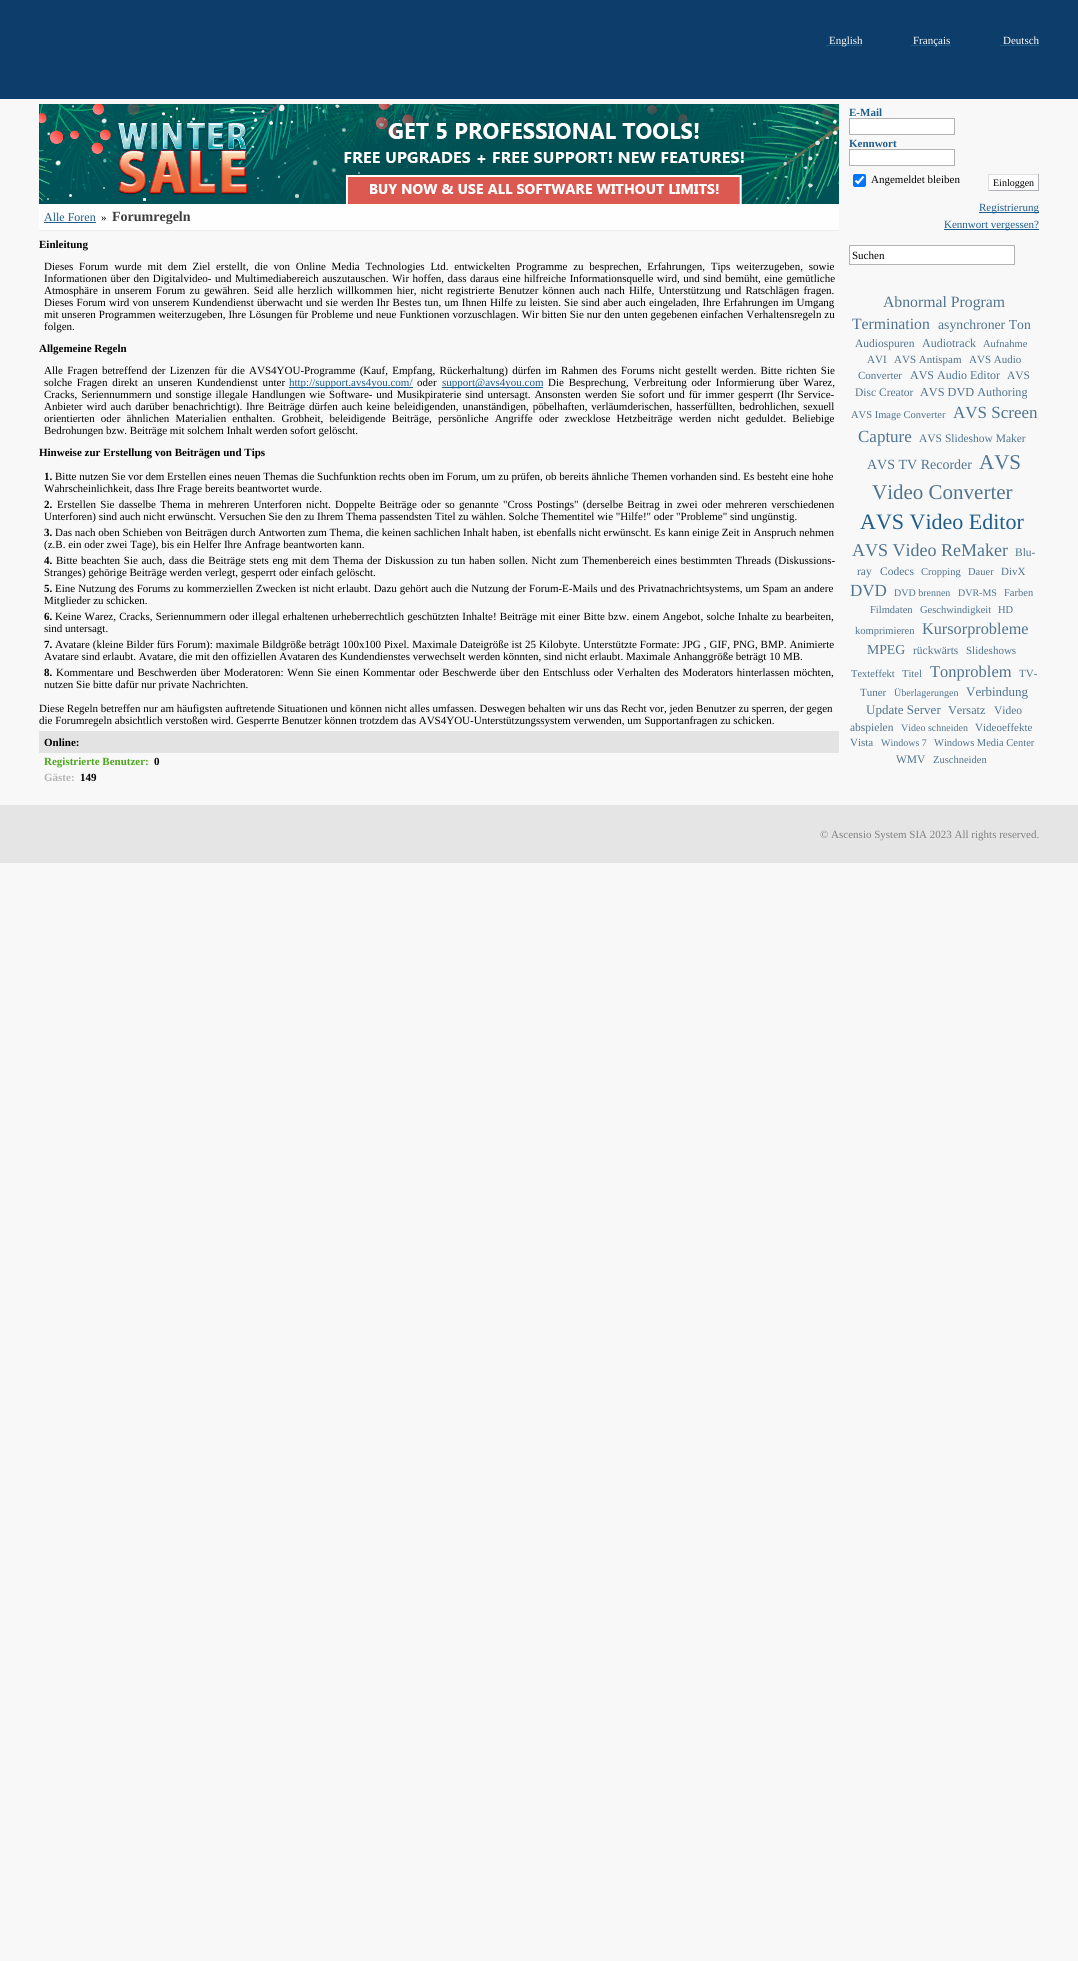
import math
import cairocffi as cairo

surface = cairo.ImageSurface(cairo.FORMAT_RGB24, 1078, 1961)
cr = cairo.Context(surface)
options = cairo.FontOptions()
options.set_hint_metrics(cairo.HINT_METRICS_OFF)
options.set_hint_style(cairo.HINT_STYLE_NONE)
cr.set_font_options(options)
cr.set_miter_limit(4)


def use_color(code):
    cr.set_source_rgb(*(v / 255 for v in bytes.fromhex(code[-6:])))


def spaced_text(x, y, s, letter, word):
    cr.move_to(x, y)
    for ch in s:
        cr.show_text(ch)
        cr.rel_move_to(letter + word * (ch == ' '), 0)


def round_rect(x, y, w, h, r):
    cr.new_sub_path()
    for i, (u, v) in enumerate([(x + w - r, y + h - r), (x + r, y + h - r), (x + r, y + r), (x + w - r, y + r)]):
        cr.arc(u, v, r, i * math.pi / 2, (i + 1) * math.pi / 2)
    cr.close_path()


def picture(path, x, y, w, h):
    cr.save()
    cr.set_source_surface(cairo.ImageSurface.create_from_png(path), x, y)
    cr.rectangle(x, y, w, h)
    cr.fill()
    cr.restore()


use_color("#f8f8f8")
cr.paint()
use_color("#0d3d6b")
cr.rectangle(0, 0, 1078, 99)
cr.fill()
use_color("#1f5d8c")
cr.rectangle(826, 45, 36, 1)
cr.fill()
cr.select_font_face("Liberation Serif")
cr.set_font_size(11)
use_color("#ffffff")
cr.move_to(829, 44)
cr.show_text("English")
use_color("#1f5d8c")
cr.rectangle(911, 45, 40, 1)
cr.fill()
use_color("#ffffff")
cr.move_to(913, 44)
cr.show_text("Français")
cr.move_to(1003, 44)
cr.show_text("Deutsch")
use_color("#1f5d8c")
cr.rectangle(1000, 45, 39, 1)
cr.fill()
picture("img1.png", 39, 104, 800, 100)
use_color("#fefefe")
cr.rectangle(39, 204, 800, 26)
cr.fill()
use_color("#eeeeee")
cr.rectangle(39, 230, 800, 1)
cr.fill()
cr.set_font_size(12)
use_color("#1f5d8c")
cr.move_to(44, 221)
cr.show_text("Alle Foren")
cr.rectangle(44, 222, 52, 1)
cr.fill()
cr.set_font_size(11)
use_color("#000000")
cr.move_to(101, 221)
cr.show_text("»")
cr.select_font_face("Liberation Serif", cairo.FONT_SLANT_NORMAL, cairo.FONT_WEIGHT_BOLD)
cr.set_font_size(14)
use_color("#3d3d3d")
cr.move_to(112, 221)
cr.show_text("Forumregeln")
cr.set_font_size(11)
use_color("#000000")
cr.move_to(39, 248)
cr.show_text("Einleitung")
cr.select_font_face("Liberation Serif")
spaced_text(44, 270, "Dieses Forum wurde mit dem Ziel erstellt, die von Online Media Technologies Ltd. entwickelten Programme zu besprechen, Erfahrungen, Tips weiterzugeben, sowie", 0, 3)
spaced_text(44, 282, "Informationen über den Digitalvideo- und Multimediabereich auszutauschen. Wir hoffen, dass daraus eine hilfreiche Informationsquelle wird, und sind bemüht, eine gemütliche", 0, 0.75)
spaced_text(44, 294, "Atmosphäre in unserem Forum zu gewähren. Seid alle herzlich willkommen hier, nicht registrierte Benutzer können auch nach Hilfe, Unterstützung und Ratschlägen fragen.", 0, 1.4)
spaced_text(44, 306, "Dieses Forum wird von unserem Kundendienst überwacht und sie werden Ihr Bestes tun, um Ihnen Hilfe zu leisten. Sie sind aber auch eingeladen, Ihre Erfahrungen im Umgang", 0, 0.45)
spaced_text(44, 318, "mit unseren Programmen weiterzugeben, Ihre Lösungen für Probleme und neue Funktionen vorzuschlagen. Wir bitten Sie nur den unten gegebenen einfachen Verhaltensregeln zu", 0, 0.2)
cr.move_to(44, 330)
cr.show_text("folgen.")
cr.select_font_face("Liberation Serif", cairo.FONT_SLANT_NORMAL, cairo.FONT_WEIGHT_BOLD)
cr.move_to(39, 352)
cr.show_text("Allgemeine Regeln")
cr.select_font_face("Liberation Serif")
spaced_text(44, 374, "Alle Fragen betreffend der Lizenzen für die AVS4YOU-Programme (Kauf, Empfang, Rückerhaltung) dürfen im Rahmen des Forums nicht gestellt werden. Bitte richten Sie", 0, 1.5)
spaced_text(44, 386, "solche Fragen direkt an unseren Kundendienst unter", 0, 2)
use_color("#1f5d8c")
cr.rectangle(289, 387, 124, 1)
cr.fill()
cr.move_to(289, 386)
cr.show_text("http://support.avs4you.com/")
use_color("#000000")
cr.move_to(417, 386)
cr.show_text("oder")
use_color("#1f5d8c")
cr.rectangle(442, 387, 101, 1)
cr.fill()
cr.move_to(442, 386)
cr.show_text("support@avs4you.com")
use_color("#000000")
spaced_text(548, 386, "Die Besprechung, Verbreitung oder Informierung über Warez,", 0, 2)
spaced_text(44, 398, "Cracks, Seriennummern und sonstige illegale Handlungen wie Software- und Musikpiraterie sind untersagt. Ansonsten werden Sie sofort und für immer gesperrt (Ihr Service-", 0, 1.1)
spaced_text(44, 410, "Anbieter wird auch darüber benachrichtigt). Ihre Beiträge dürfen auch keine beleidigenden, unanständigen, pöbelhaften, verläumderischen, hasserfüllten, bedrohlichen, sexuell", 0, 1.2)
spaced_text(44, 422, "orientierten oder ähnlichen Materialien enthalten. Grobheit, beleidigende Beiträge, persönliche Angriffe oder zwecklose Hetzbeiträge werden nicht geduldet. Beliebige", 0, 3.4)
cr.move_to(44, 434)
cr.show_text("Bedrohungen bzw. Beiträge mit solchem Inhalt werden sofort gelöscht.")
cr.select_font_face("Liberation Serif", cairo.FONT_SLANT_NORMAL, cairo.FONT_WEIGHT_BOLD)
cr.move_to(39, 456)
cr.show_text("Hinweise zur Erstellung von Beiträgen und Tips")
cr.move_to(44, 480)
cr.show_text("1.")
cr.select_font_face("Liberation Serif")
cr.move_to(55, 480)
cr.show_text("Bitte nutzen Sie vor dem Erstellen eines neuen Themas die Suchfunktion rechts oben im Forum, um zu prüfen, ob bereits ähnliche Themen vorhanden sind. Es besteht eine hohe")
cr.move_to(44, 492)
cr.show_text("Wahrscheinlichkeit, dass Ihre Frage bereits beantwortet wurde.")
cr.select_font_face("Liberation Serif", cairo.FONT_SLANT_NORMAL, cairo.FONT_WEIGHT_BOLD)
cr.move_to(44, 508)
cr.show_text("2.")
cr.select_font_face("Liberation Serif")
spaced_text(57, 508, "Erstellen Sie dasselbe Thema in mehreren Unterforen nicht. Doppelte Beiträge oder so genannte \"Cross Postings\" (derselbe Beitrag in zwei oder mehreren verschiedenen", 0, 1.5)
cr.move_to(44, 520)
cr.show_text("Unterforen) sind auch nicht erwünscht. Versuchen Sie den zu Ihrem Thema passendsten Titel zu wählen. Solche Thementitel wie \"Hilfe!\" oder \"Probleme\" sind ungünstig.")
cr.select_font_face("Liberation Serif", cairo.FONT_SLANT_NORMAL, cairo.FONT_WEIGHT_BOLD)
cr.move_to(44, 536)
cr.show_text("3.")
cr.select_font_face("Liberation Serif")
cr.move_to(55, 536)
cr.show_text("Das nach oben Schieben von Beiträgen durch Antworten zum Thema, die keinen sachlichen Inhalt haben, ist ebenfalls nicht erwünscht. Es kann einige Zeit in Anspruch nehmen")
cr.move_to(44, 548)
cr.show_text("(z.B. ein oder zwei Tage), bis ein Helfer Ihre Anfrage beantworten kann.")
cr.select_font_face("Liberation Serif", cairo.FONT_SLANT_NORMAL, cairo.FONT_WEIGHT_BOLD)
cr.move_to(44, 564)
cr.show_text("4.")
cr.select_font_face("Liberation Serif")
spaced_text(56, 564, "Bitte beachten Sie auch, dass die Beiträge stets eng mit dem Thema der Diskussion zu tun haben sollen. Nicht zum Themenbereich eines bestimmten Threads (Diskussions-", 0, 0.9)
cr.move_to(44, 576)
cr.show_text("Stranges) gehörige Beiträge werden verlegt, gesperrt oder einfach gelöscht.")
cr.select_font_face("Liberation Serif", cairo.FONT_SLANT_NORMAL, cairo.FONT_WEIGHT_BOLD)
cr.move_to(44, 592)
cr.show_text("5.")
cr.select_font_face("Liberation Serif")
spaced_text(55, 592, "Eine Nutzung des Forums zu kommerziellen Zwecken ist nicht erlaubt. Dazu gehört auch die Nutzung der Forum-E-Mails und des Privatnachrichtsystems, um Spam an andere", 0, 0.25)
cr.move_to(44, 604)
cr.show_text("Mitglieder zu schicken.")
cr.select_font_face("Liberation Serif", cairo.FONT_SLANT_NORMAL, cairo.FONT_WEIGHT_BOLD)
cr.move_to(44, 620)
cr.show_text("6.")
cr.select_font_face("Liberation Serif")
spaced_text(55, 620, "Keine Warez, Cracks, Seriennummern oder illegal erhaltenen urheberrechtlich geschützten Inhalte! Beiträge mit einer Bitte bzw. einem Angebot, solche Inhalte zu bearbeiten,", 0, 0.5)
cr.move_to(44, 632)
cr.show_text("sind untersagt.")
cr.select_font_face("Liberation Serif", cairo.FONT_SLANT_NORMAL, cairo.FONT_WEIGHT_BOLD)
cr.move_to(44, 648)
cr.show_text("7.")
cr.select_font_face("Liberation Serif")
spaced_text(55, 648, "Avatare (kleine Bilder fürs Forum): maximale Bildgröße beträgt 100x100 Pixel. Maximale Dateigröße ist 25 Kilobyte. Unterstützte Formate: JPG , GIF, PNG, BMP. Animierte", 0, 0.2)
cr.move_to(44, 660)
cr.show_text("Avatare sind erlaubt. Avatare, die mit den offiziellen Avataren des Kundendienstes verwechselt werden könnten, sind nicht erlaubt. Maximale Anhanggröße beträgt 10 MB.")
cr.select_font_face("Liberation Serif", cairo.FONT_SLANT_NORMAL, cairo.FONT_WEIGHT_BOLD)
cr.move_to(44, 676)
cr.show_text("8.")
cr.select_font_face("Liberation Serif")
spaced_text(56, 676, "Kommentare und Beschwerden über Moderatoren: Wenn Sie einen Kommentar oder Beschwerde über den Entschluss oder Verhalten des Moderators hinterlassen möchten,", 0, 1)
cr.move_to(44, 688)
cr.show_text("nutzen Sie bitte dafür nur private Nachrichten.")
cr.move_to(39, 712)
cr.show_text("Diese Regeln betreffen nur am häufigsten auftretende Situationen und können nicht alles umfassen. Deswegen behalten wir uns das Recht vor, jeden Benutzer zu sperren, der gegen")
cr.move_to(39, 724)
cr.show_text("die Forumregeln absichtlich verstoßen wird. Gesperrte Benutzer können trotzdem das AVS4YOU-Unterstützungssystem verwenden, um Supportanfragen zu schicken.")
use_color("#e3e3e3")
cr.rectangle(39, 731, 800, 22)
cr.fill()
cr.select_font_face("Liberation Serif", cairo.FONT_SLANT_NORMAL, cairo.FONT_WEIGHT_BOLD)
use_color("#000000")
cr.move_to(44, 746)
cr.show_text("Online:")
use_color("#4da51d")
cr.move_to(44, 765)
cr.show_text("Registrierte Benutzer:")
use_color("#000000")
cr.move_to(154, 765)
cr.show_text("0")
use_color("#b4b4b4")
cr.move_to(44, 781)
cr.show_text("Gäste:")
use_color("#000000")
cr.move_to(80, 781)
cr.show_text("149")
use_color("#1f5d8c")
cr.move_to(849, 116)
cr.show_text("E-Mail")
use_color("#ffffff")
cr.rectangle(849.5, 118.5, 105, 16)
cr.fill_preserve()
use_color("#b2b2b2")
cr.set_line_width(1)
cr.stroke()
use_color("#1f5d8c")
cr.move_to(849, 147)
cr.show_text("Kennwort")
use_color("#ffffff")
cr.rectangle(849.5, 149.5, 105, 16)
cr.fill_preserve()
use_color("#b2b2b2")
cr.stroke()
use_color("#0075ff")
round_rect(853, 174, 13, 13, 2)
cr.fill()
cr.new_path()
cr.move_to(855.5, 180.5)
cr.line_to(858, 183)
cr.line_to(863.5, 176.5)
use_color("#ffffff")
cr.set_line_width(2.1)
cr.stroke()
cr.select_font_face("Liberation Serif")
use_color("#000000")
cr.move_to(871, 183)
cr.show_text("Angemeldet bleiben")
use_color("#ffffff")
cr.rectangle(989, 175, 49, 15)
cr.fill()
use_color("#dfdfdf")
cr.rectangle(988, 174, 51, 1)
cr.fill()
use_color("#afb2b7")
cr.rectangle(1038, 174, 1, 17)
cr.fill()
cr.rectangle(988, 190, 51, 1)
cr.fill()
use_color("#dfdfdf")
cr.rectangle(988, 174, 1, 17)
cr.fill()
cr.set_font_size(10)
use_color("#000000")
cr.move_to(993, 186)
cr.show_text("Einloggen")
use_color("#1f5d8c")
cr.rectangle(979, 212, 60, 1)
cr.fill()
cr.set_font_size(11)
cr.move_to(979, 211)
cr.show_text("Registrierung")
cr.rectangle(944, 229, 95, 1)
cr.fill()
cr.move_to(944, 228)
cr.show_text("Kennwort vergessen?")
use_color("#ffffff")
cr.rectangle(849.5, 245.5, 165, 19)
cr.fill_preserve()
use_color("#b2b2b2")
cr.set_line_width(1)
cr.stroke()
use_color("#000000")
cr.move_to(852, 259)
cr.show_text("Suchen")
cr.set_font_size(15.75)
use_color("#50748f")
cr.move_to(883, 307)
cr.show_text("Abnormal Program")
cr.move_to(852, 329)
cr.show_text("Termination")
cr.set_font_size(13.75)
cr.move_to(938, 329)
cr.show_text("asynchroner Ton")
cr.set_font_size(11.5)
cr.move_to(855, 347)
cr.show_text("Audiospuren")
cr.set_font_size(12)
cr.move_to(922, 347)
cr.show_text("Audiotrack")
cr.set_font_size(10.5)
cr.move_to(983, 347)
cr.show_text("Aufnahme")
cr.set_font_size(11)
cr.move_to(867, 363)
cr.show_text("AVI")
cr.move_to(894, 363)
cr.show_text("AVS Antispam")
cr.move_to(969, 363)
cr.show_text("AVS Audio")
cr.move_to(858, 379)
cr.show_text("Converter")
cr.set_font_size(12)
cr.move_to(910, 379)
cr.show_text("AVS Audio Editor")
cr.set_font_size(11.5)
cr.move_to(1007, 379)
cr.show_text("AVS")
cr.move_to(855, 396)
cr.show_text("Disc Creator")
cr.set_font_size(12.25)
cr.move_to(920, 396)
cr.show_text("AVS DVD Authoring")
cr.set_font_size(10.5)
cr.move_to(851, 418)
cr.show_text("AVS Image Converter")
cr.set_font_size(17)
cr.move_to(953, 418)
cr.show_text("AVS Screen")
cr.move_to(858, 442)
cr.show_text("Capture")
cr.set_font_size(11.5)
cr.move_to(919, 442)
cr.show_text("AVS Slideshow Maker")
cr.set_font_size(14)
cr.move_to(867, 469)
cr.show_text("AVS TV Recorder")
cr.set_font_size(21)
cr.move_to(979, 469)
cr.show_text("AVS")
cr.move_to(872, 499)
cr.show_text("Video Converter")
cr.set_font_size(22)
use_color("#1f5d8c")
cr.move_to(860, 529)
cr.show_text("AVS Video Editor")
cr.set_font_size(18)
use_color("#50748f")
cr.move_to(852, 556)
cr.show_text("AVS Video ReMaker")
cr.set_font_size(11.5)
cr.move_to(1015, 556)
cr.show_text("Blu-")
cr.move_to(857, 575)
cr.show_text("ray")
cr.move_to(880, 575)
cr.show_text("Codecs")
cr.set_font_size(10.5)
cr.move_to(921, 575)
cr.show_text("Cropping")
cr.move_to(968, 575)
cr.show_text("Dauer")
cr.set_font_size(11)
cr.move_to(1001, 575)
cr.show_text("DivX")
cr.set_font_size(17)
cr.move_to(850, 596)
cr.show_text("DVD")
cr.set_font_size(10)
cr.move_to(894, 596)
cr.show_text("DVD brennen")
cr.move_to(958, 596)
cr.show_text("DVR-MS")
cr.set_font_size(10.5)
cr.move_to(1004, 596)
cr.show_text("Farben")
cr.move_to(870, 613)
cr.show_text("Filmdaten")
cr.move_to(920, 613)
cr.show_text("Geschwindigkeit")
cr.move_to(998, 613)
cr.show_text("HD")
cr.move_to(855, 634)
cr.show_text("komprimieren")
cr.set_font_size(16.25)
cr.move_to(922, 634)
cr.show_text("Kursorprobleme")
cr.set_font_size(13.75)
cr.move_to(867, 654)
cr.show_text("MPEG")
cr.set_font_size(11.5)
cr.move_to(913, 654)
cr.show_text("rückwärts")
cr.set_font_size(11)
cr.move_to(966, 654)
cr.show_text("Slideshows")
cr.set_font_size(10.5)
cr.move_to(851, 677)
cr.show_text("Texteffekt")
cr.move_to(902, 677)
cr.show_text("Titel")
cr.set_font_size(16.5)
cr.move_to(930, 677)
cr.show_text("Tonproblem")
cr.set_font_size(11)
cr.move_to(1019, 677)
cr.show_text("TV-")
cr.move_to(860, 696)
cr.show_text("Tuner")
cr.set_font_size(10)
cr.move_to(894, 696)
cr.show_text("Überlagerungen")
cr.set_font_size(13)
cr.move_to(966, 696)
cr.show_text("Verbindung")
cr.move_to(866, 714)
cr.show_text("Update Server")
cr.set_font_size(12.25)
cr.move_to(948, 714)
cr.show_text("Versatz")
cr.set_font_size(11.5)
cr.move_to(994, 714)
cr.show_text("Video")
cr.move_to(850, 731)
cr.show_text("abspielen")
cr.set_font_size(10)
cr.move_to(901, 731)
cr.show_text("Video schneiden")
cr.set_font_size(11)
cr.move_to(975, 731)
cr.show_text("Videoeffekte")
cr.move_to(850, 746)
cr.show_text("Vista")
cr.set_font_size(10)
cr.move_to(881, 746)
cr.show_text("Windows 7")
cr.set_font_size(10.5)
cr.move_to(934, 746)
cr.show_text("Windows Media Center")
cr.set_font_size(11.5)
cr.move_to(896, 763)
cr.show_text("WMV")
cr.set_font_size(10.5)
cr.move_to(933, 763)
cr.show_text("Zuschneiden")
use_color("#e5e5e5")
cr.rectangle(0, 805, 1078, 58)
cr.fill()
cr.set_font_size(11)
use_color("#808080")
cr.move_to(820, 838)
cr.show_text("© Ascensio System SIA 2023 All rights reserved.")
surface.write_to_png("result.png")
